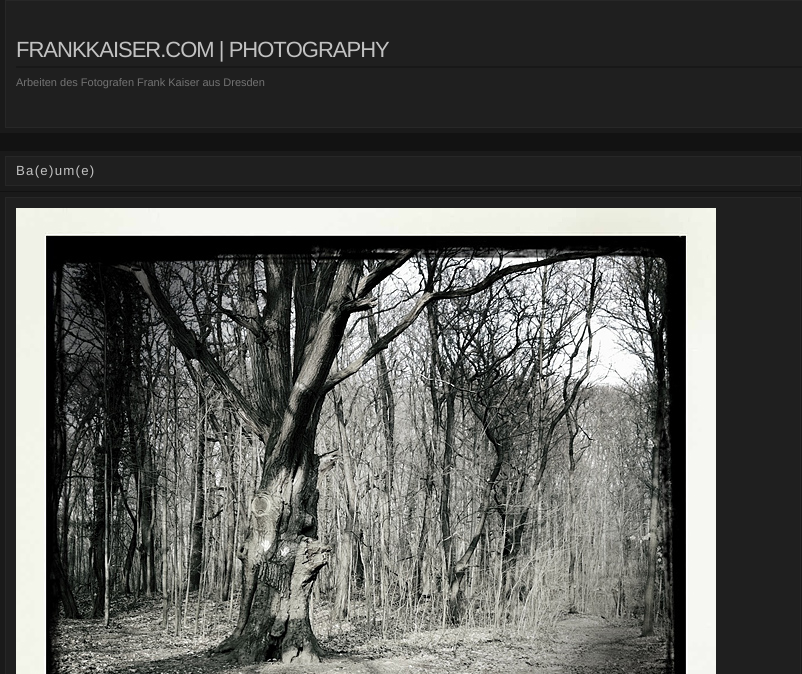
import math
import cairocffi as cairo

surface = cairo.ImageSurface(cairo.FORMAT_RGB24, 802, 674)
cr = cairo.Context(surface)
options = cairo.FontOptions()
options.set_hint_metrics(cairo.HINT_METRICS_OFF)
options.set_hint_style(cairo.HINT_STYLE_NONE)
cr.set_font_options(options)
cr.set_miter_limit(4)


def use_color(code):
    cr.set_source_rgb(*(v / 255 for v in bytes.fromhex(code[-6:])))


def spaced_text(x, y, s, letter, word):
    cr.move_to(x, y)
    for ch in s:
        cr.show_text(ch)
        cr.rel_move_to(letter + word * (ch == ' '), 0)


def picture(path, x, y, w, h):
    cr.save()
    cr.set_source_surface(cairo.ImageSurface.create_from_png(path), x, y)
    cr.rectangle(x, y, w, h)
    cr.fill()
    cr.restore()


use_color("#121212")
cr.paint()
use_color("#1a1a1a")
cr.rectangle(0, 0, 802, 133)
cr.fill()
use_color("#1f1f1f")
cr.rectangle(5.5, 0.5, 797, 127)
cr.fill_preserve()
use_color("#272727")
cr.set_line_width(1)
cr.stroke()
use_color("#181818")
cr.rectangle(16, 66, 786, 2)
cr.fill()
cr.select_font_face("Liberation Sans")
cr.set_font_size(22)
use_color("#c2c2c2")
spaced_text(16, 57, "FRANKKAISER.COM | PHOTOGRAPHY", -1, 0)
cr.set_font_size(11)
use_color("#727272")
cr.move_to(16, 86)
cr.show_text("Arbeiten des Fotografen Frank Kaiser aus Dresden")
use_color("#1a1a1a")
cr.rectangle(0, 151, 802, 40)
cr.fill()
use_color("#1f1f1f")
cr.rectangle(5.5, 156.5, 795, 29)
cr.fill_preserve()
use_color("#272727")
cr.stroke()
cr.set_font_size(13.25)
use_color("#c2c2c2")
spaced_text(16, 175, "Ba(e)um(e)", 1.25, 0)
use_color("#1a1a1a")
cr.rectangle(0, 192, 802, 482)
cr.fill()
use_color("#1f1f1f")
cr.rectangle(5.5, 197.5, 795, 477)
cr.fill_preserve()
use_color("#272727")
cr.stroke()
picture("img1.png", 16, 208, 700, 466)
surface.write_to_png("result.png")
